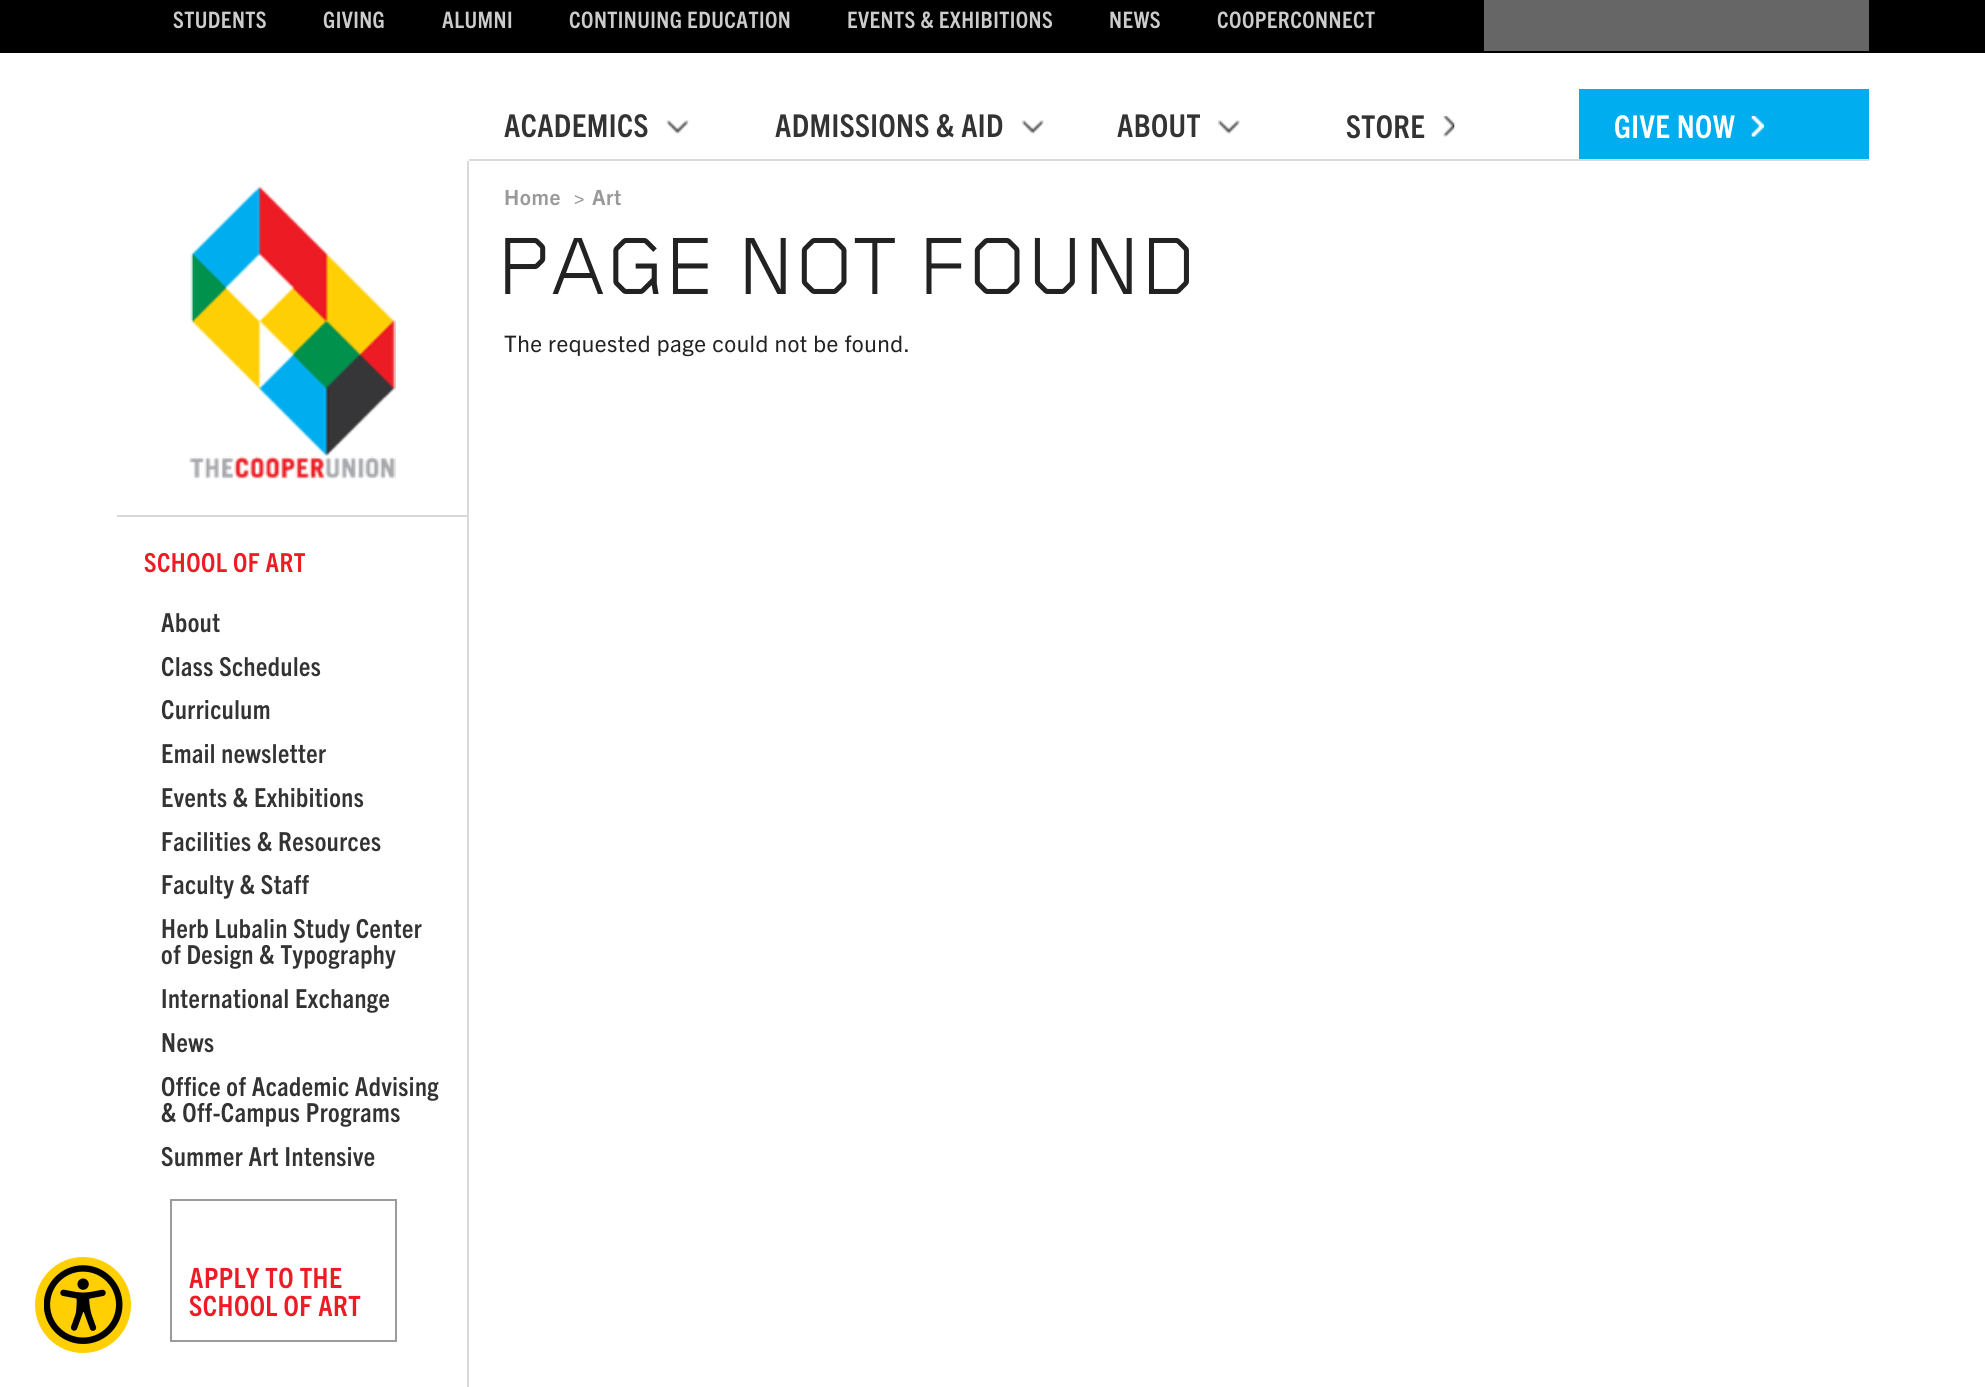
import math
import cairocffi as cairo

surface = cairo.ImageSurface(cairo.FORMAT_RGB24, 1985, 1387)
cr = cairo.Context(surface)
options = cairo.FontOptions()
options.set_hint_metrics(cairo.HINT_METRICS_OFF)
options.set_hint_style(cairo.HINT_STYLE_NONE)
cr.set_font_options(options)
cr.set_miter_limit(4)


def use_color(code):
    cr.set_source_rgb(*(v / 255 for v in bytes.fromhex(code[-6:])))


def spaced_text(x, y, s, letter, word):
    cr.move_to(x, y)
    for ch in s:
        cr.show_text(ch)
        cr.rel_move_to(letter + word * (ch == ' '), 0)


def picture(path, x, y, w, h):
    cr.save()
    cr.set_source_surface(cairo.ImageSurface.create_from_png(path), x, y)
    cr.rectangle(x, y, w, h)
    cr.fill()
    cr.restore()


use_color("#ffffff")
cr.paint()
use_color("#ffcf01")
cr.arc(83, 1305, 48, 0, 2 * math.pi)
cr.fill()
picture("img1.png", 44, 1265, 79, 79)
use_color("#000000")
cr.rectangle(0, 0, 1985, 53)
cr.fill()
cr.select_font_face("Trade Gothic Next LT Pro", cairo.FONT_SLANT_NORMAL, cairo.FONT_WEIGHT_BOLD)
cr.set_font_size(22.75)
use_color("#cccccc")
spaced_text(173, 28, "STUDENTS", 0.45, 0)
spaced_text(323, 28, "GIVING", 0.45, 0)
spaced_text(442, 28, "ALUMNI", 0.45, 0)
spaced_text(569, 28, "CONTINUING EDUCATION", 0.45, 0)
spaced_text(847, 28, "EVENTS & EXHIBITIONS", 0.45, 0)
spaced_text(1109, 28, "NEWS", 0.45, 0)
spaced_text(1217, 28, "COOPERCONNECT", 0.45, 0)
use_color("#666666")
cr.rectangle(1484, 0, 385, 51)
cr.fill()
use_color("#d9d9d9")
cr.rectangle(469, 159, 1400, 2)
cr.fill()
cr.set_font_size(31.5)
use_color("#333333")
spaced_text(504, 137, "ACADEMICS", 0.45, 0)
picture("img2.png", 666, 120, 23, 14)
spaced_text(775, 137, "ADMISSIONS & AID", 0.45, 0)
picture("img3.png", 1022, 120, 22, 14)
spaced_text(1117, 137, "ABOUT", 0.45, 0)
picture("img3.png", 1218, 120, 22, 14)
spaced_text(1346, 138, "STORE", 0.45, 0)
picture("img4.png", 1443, 116, 12, 21)
use_color("#00aeef")
cr.rectangle(1579, 89, 290, 70)
cr.fill()
use_color("#ffffff")
spaced_text(1614, 138, "GIVE NOW", 0.45, 0)
picture("img5.png", 1751, 116, 13, 21)
use_color("#d9d9d9")
cr.rectangle(467, 161, 2, 1226)
cr.fill()
cr.select_font_face("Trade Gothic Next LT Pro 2", cairo.FONT_SLANT_NORMAL, cairo.FONT_WEIGHT_BOLD)
cr.set_font_size(21)
use_color("#999999")
spaced_text(504, 205, "Home", 0.5, 0)
spaced_text(573, 205, ">", 0.5, 0)
spaced_text(592, 205, "Art", 0.5, 0)
cr.select_font_face("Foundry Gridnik")
cr.set_font_size(84)
use_color("#222222")
spaced_text(497, 294, "PAGE NOT FOUND", 0.8, 0)
cr.select_font_face("Trade Gothic Next LT Pro")
cr.set_font_size(22.75)
spaced_text(504, 352, "The requested page could not be found.", 0.45, 0)
use_color("#d9d9d9")
cr.rectangle(117, 515, 350, 2)
cr.fill()
picture("img6.png", 189, 186, 207, 293)
cr.select_font_face("Trade Gothic Next LT Pro", cairo.FONT_SLANT_NORMAL, cairo.FONT_WEIGHT_BOLD)
cr.set_font_size(26.25)
use_color("#ed1c24")
spaced_text(144, 572, "SCHOOL OF ART", 0.5, 0)
use_color("#333333")
spaced_text(161, 632, "About", 0.5, 0)
spaced_text(161, 676, "Class Schedules", 0.5, 0)
spaced_text(161, 719, "Curriculum", 0.5, 0)
spaced_text(161, 763, "Email newsletter", 0.5, 0)
spaced_text(161, 807, "Events & Exhibitions", 0.5, 0)
spaced_text(161, 851, "Facilities & Resources", 0.5, 0)
spaced_text(161, 894, "Faculty & Staff", 0.5, 0)
spaced_text(161, 938, "Herb Lubalin Study Center", 0.5, 0)
spaced_text(161, 964, "of Design & Typography", 0.5, 0)
spaced_text(161, 1008, "International Exchange", 0.5, 0)
spaced_text(161, 1052, "News", 0.5, 0)
spaced_text(161, 1096, "Office of Academic Advising", 0.5, 0)
spaced_text(161, 1122, "& Off-Campus Programs", 0.5, 0)
spaced_text(161, 1166, "Summer Art Intensive", 0.5, 0)
cr.rectangle(171, 1200, 225, 141)
use_color("#9c9a9b")
cr.stroke()
cr.set_font_size(28)
use_color("#ed1c24")
spaced_text(189, 1288, "APPLY TO THE", 0.5, 0)
spaced_text(189, 1316, "SCHOOL OF ART", 0.5, 0)
surface.write_to_png("result.png")
